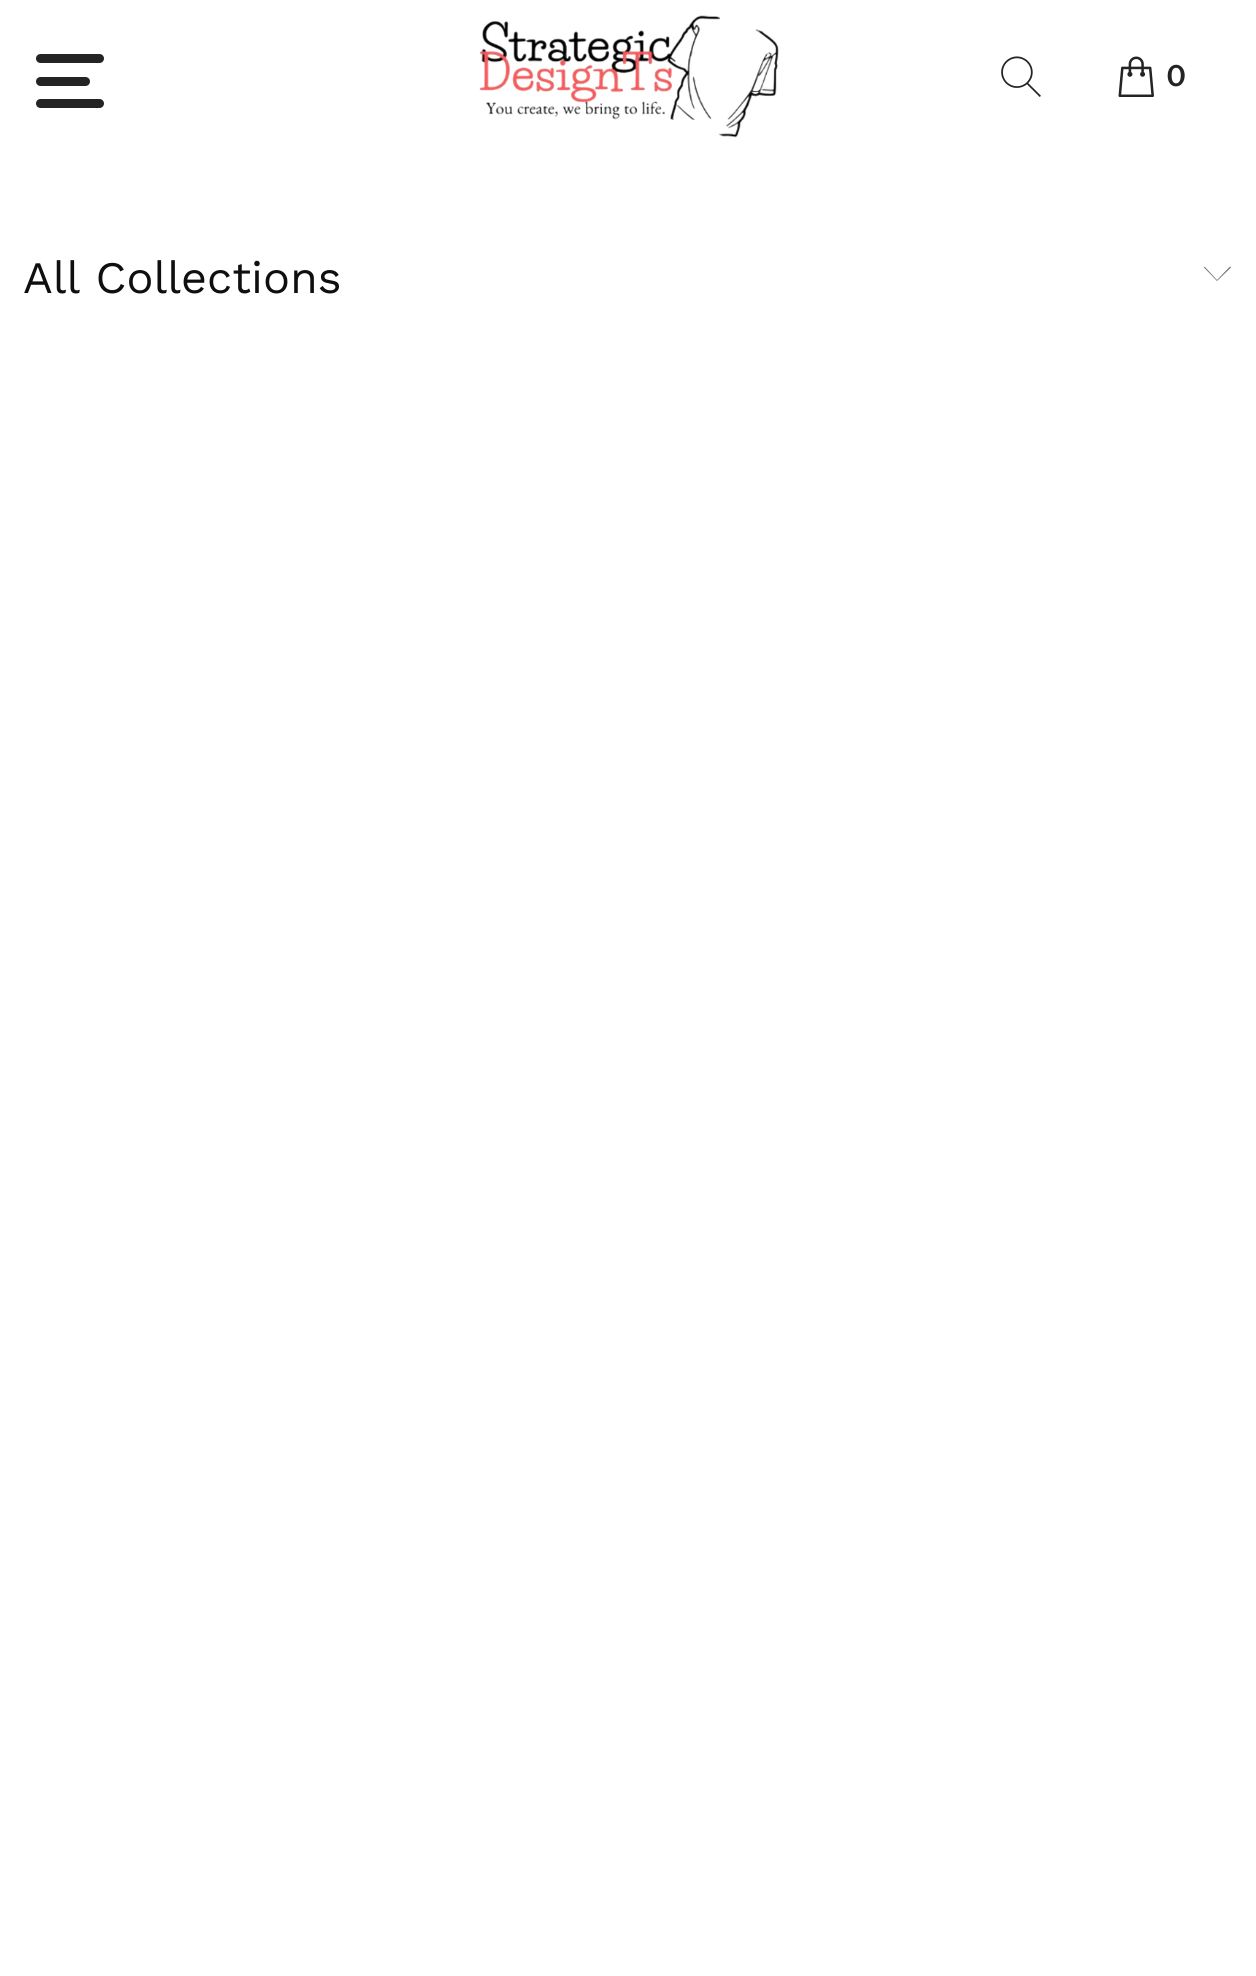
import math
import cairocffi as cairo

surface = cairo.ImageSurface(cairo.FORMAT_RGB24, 1256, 1976)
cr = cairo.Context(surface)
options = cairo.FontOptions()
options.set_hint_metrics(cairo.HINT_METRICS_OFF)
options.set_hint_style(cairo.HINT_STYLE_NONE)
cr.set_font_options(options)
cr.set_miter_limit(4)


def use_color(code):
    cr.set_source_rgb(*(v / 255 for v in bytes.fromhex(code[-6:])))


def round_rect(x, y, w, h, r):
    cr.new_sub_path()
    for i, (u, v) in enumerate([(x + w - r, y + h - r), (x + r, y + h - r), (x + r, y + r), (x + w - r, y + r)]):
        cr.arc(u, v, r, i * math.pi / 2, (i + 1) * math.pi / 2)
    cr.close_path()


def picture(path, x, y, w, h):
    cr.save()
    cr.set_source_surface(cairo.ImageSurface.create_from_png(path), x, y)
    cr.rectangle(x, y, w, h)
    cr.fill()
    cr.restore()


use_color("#ffffff")
cr.paint()
use_color("#242424")
round_rect(36, 54, 68, 9, 4.5)
cr.fill()
round_rect(36, 77, 54, 9, 4.5)
cr.fill()
round_rect(36, 99, 68, 9, 4.5)
cr.fill()
picture("img1.png", 479, 15, 300, 123)
picture("img2.png", 1001, 56, 40, 41)
picture("img3.png", 1118, 56, 36, 41)
cr.select_font_face("Quattrocento Sans", cairo.FONT_SLANT_NORMAL, cairo.FONT_WEIGHT_BOLD)
cr.set_font_size(32)
cr.move_to(1166, 86)
cr.show_text("0")
cr.select_font_face("Work Sans")
cr.set_font_size(45)
use_color("#0f0f10")
cr.move_to(23, 293)
cr.show_text("All Collections")
use_color("#727272")
cr.new_path()
cr.move_to(1217, 281)
cr.line_to(1204, 267.5)
cr.line_to(1204.5, 266.5)
cr.line_to(1217, 280)
cr.line_to(1230, 266.5)
cr.line_to(1231, 267.5)
cr.close_path()
cr.fill()
surface.write_to_png("result.png")
